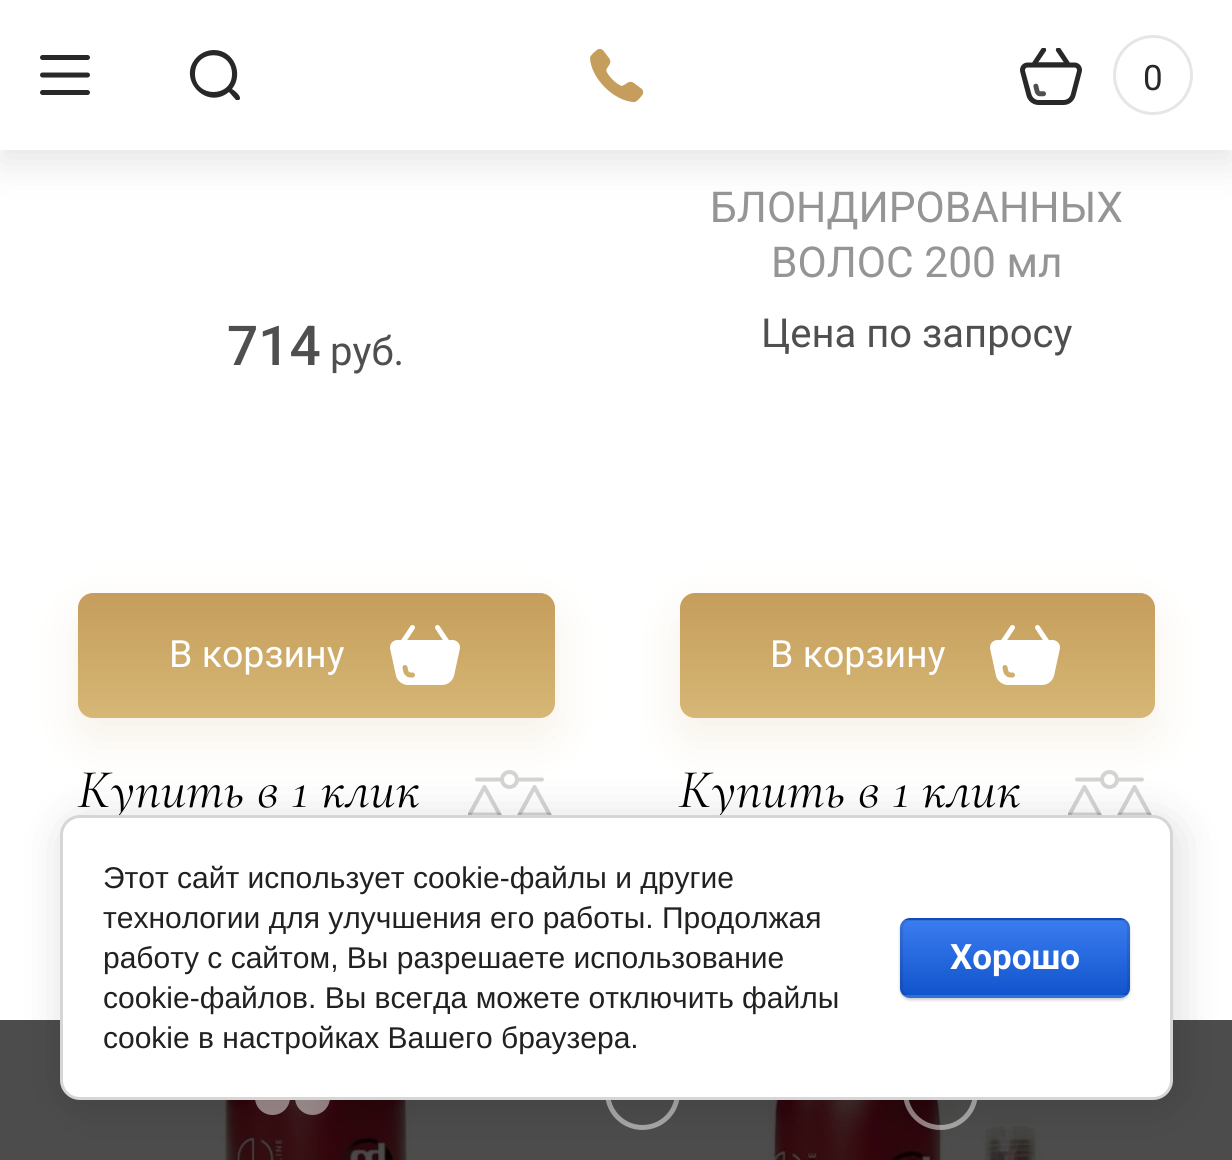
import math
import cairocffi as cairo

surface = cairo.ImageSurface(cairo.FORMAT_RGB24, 1232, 1160)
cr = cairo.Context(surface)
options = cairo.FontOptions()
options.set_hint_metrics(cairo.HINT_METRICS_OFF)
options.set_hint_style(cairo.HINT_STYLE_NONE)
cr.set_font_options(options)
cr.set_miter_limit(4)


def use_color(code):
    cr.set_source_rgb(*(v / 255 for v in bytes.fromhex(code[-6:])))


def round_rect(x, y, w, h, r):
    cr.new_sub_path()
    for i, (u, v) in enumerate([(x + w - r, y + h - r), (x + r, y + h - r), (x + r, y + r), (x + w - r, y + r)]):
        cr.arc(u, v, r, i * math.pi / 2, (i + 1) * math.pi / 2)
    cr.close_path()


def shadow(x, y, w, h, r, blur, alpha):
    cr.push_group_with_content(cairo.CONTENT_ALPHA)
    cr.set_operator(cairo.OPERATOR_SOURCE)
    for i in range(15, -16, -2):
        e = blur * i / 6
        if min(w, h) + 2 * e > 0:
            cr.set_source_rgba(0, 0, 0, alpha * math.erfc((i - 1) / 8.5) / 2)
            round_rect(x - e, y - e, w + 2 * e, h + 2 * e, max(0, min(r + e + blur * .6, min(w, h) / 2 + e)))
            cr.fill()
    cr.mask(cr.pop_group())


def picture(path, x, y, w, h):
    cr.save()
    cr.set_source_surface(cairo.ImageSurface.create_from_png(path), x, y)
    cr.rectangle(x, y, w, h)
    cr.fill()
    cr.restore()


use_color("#ffffff")
cr.paint()
use_color("#000000")
shadow(0, 13, 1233, 150, 0, 19, 0.1)
use_color("#ffffff")
cr.rectangle(0, 0, 1232, 150)
cr.fill()
picture("img1.png", 40, 55, 50, 40)
use_color("#282828")
cr.set_fill_rule(cairo.FILL_RULE_EVEN_ODD)
cr.new_path()
cr.move_to(214, 50)
cr.curve_to(207, 50, 201, 53, 197, 57)
cr.curve_to(176, 78, 206, 111, 229, 92)
cr.line_to(236, 100)
cr.curve_to(237, 100, 238, 100, 239, 100)
cr.curve_to(243, 97, 234, 90, 232, 89)
cr.curve_to(244, 74, 234, 50, 214, 50)
cr.close_path()
cr.move_to(195, 74)
cr.curve_to(195, 49, 232, 49, 232, 74)
cr.curve_to(232, 98, 195, 98, 195, 74)
cr.close_path()
cr.fill()
picture("img2.png", 590, 48, 54, 55)
picture("img3.png", 1020, 48, 62, 57)
cr.arc(1153, 75, 38.5, 0, 2 * math.pi)
use_color("#e6e6e6")
cr.set_line_width(3)
cr.stroke()
cr.select_font_face("Roboto")
cr.set_font_size(35)
use_color("#282828")
cr.move_to(1143, 90)
cr.show_text("0")
cr.select_font_face("Roboto Medium")
cr.set_font_size(55)
use_color("#4f4f4f")
cr.move_to(227, 365)
cr.show_text("714")
cr.select_font_face("Roboto")
cr.set_font_size(40)
cr.move_to(330, 365)
cr.show_text("руб.")
picture("img5.png", 468, 770, 84, 45)
use_color("#c59d5c")
shadow(78, 613, 477, 125, 15, 25, 0.15)
gradient = cairo.LinearGradient(316, 593, 316, 718)
gradient.add_color_stop_rgba(0, 0.773, 0.616, 0.361, 1)
gradient.add_color_stop_rgba(1, 0.839, 0.718, 0.459, 1)
cr.set_source(gradient)
round_rect(78, 593, 477, 125, 15)
cr.fill()
cr.set_font_size(37.5)
use_color("#ffffff")
cr.move_to(169, 667)
cr.show_text("В корзину")
picture("img4.png", 390, 625, 70, 60)
cr.select_font_face("Cormorant", cairo.FONT_SLANT_ITALIC)
cr.set_font_size(55)
use_color("#000000")
cr.move_to(78, 807)
cr.show_text("Купить в 1 клик")
cr.select_font_face("Roboto")
cr.set_font_size(42.5)
use_color("#959595")
cr.move_to(710, 222)
cr.show_text("БЛОНДИРОВАННЫХ")
cr.move_to(771, 277)
cr.show_text("ВОЛОС 200 мл")
cr.set_font_size(40)
use_color("#4f4f4f")
cr.move_to(761, 347)
cr.show_text("Цена по запросу")
picture("img5.png", 1068, 770, 84, 45)
use_color("#c59d5c")
shadow(680, 613, 475, 125, 15, 25, 0.15)
gradient = cairo.LinearGradient(918, 593, 918, 718)
gradient.add_color_stop_rgba(0, 0.773, 0.616, 0.361, 1)
gradient.add_color_stop_rgba(1, 0.839, 0.718, 0.459, 1)
cr.set_source(gradient)
round_rect(680, 593, 475, 125, 15)
cr.fill()
cr.set_font_size(37.5)
use_color("#ffffff")
cr.move_to(770, 667)
cr.show_text("В корзину")
picture("img4.png", 990, 625, 70, 60)
cr.select_font_face("Cormorant", cairo.FONT_SLANT_ITALIC)
cr.set_font_size(55)
use_color("#000000")
cr.move_to(679, 807)
cr.show_text("Купить в 1 клик")
picture("img6.png", 218, 1100, 198, 60)
picture("img7.png", 768, 1100, 275, 60)
cr.set_source_rgba(0, 0, 0, 0.7)
cr.rectangle(0, 1020, 1232, 140)
cr.fill()
picture("img8.png", 255, 1100, 75, 15)
cr.arc(642.5, 1092.5, 35, 0, 2 * math.pi)
use_color("#a6a6a6")
cr.set_line_width(5)
cr.stroke()
cr.arc(940.5, 1092.5, 35, 0, 2 * math.pi)
cr.set_source_rgba(1, 1, 1, 0.5)
cr.stroke()
use_color("#000000")
shadow(65, 820, 1113, 285, 20, 22.5, 0.14)
use_color("#ffffff")
round_rect(61.5, 816.5, 1110, 282, 18.5)
cr.fill_preserve()
use_color("#d6d6d6")
cr.set_line_width(3)
cr.stroke()
cr.select_font_face("Liberation Sans")
cr.set_font_size(30)
use_color("#212121")
cr.move_to(103, 888)
cr.show_text("Этот сайт использует cookie-файлы и другие")
cr.move_to(103, 928)
cr.show_text("технологии для улучшения его работы. Продолжая")
cr.move_to(103, 968)
cr.show_text("работу с сайтом, Вы разрешаете использование")
cr.move_to(103, 1008)
cr.show_text("cookie-файлов. Вы всегда можете отключить файлы")
cr.move_to(103, 1048)
cr.show_text("cookie в настройках Вашего браузера.")
use_color("#000000")
shadow(900, 920, 230, 80, 10, 1.5, 0.2)
cr.save()
cr.set_fill_rule(cairo.FILL_RULE_WINDING)
round_rect(900, 918, 230, 80, 10)
cr.clip()
gradient = cairo.LinearGradient(1015, 845, 1015, 920)
gradient.add_color_stop_rgba(0, 0.231, 0.486, 0.937, 1)
gradient.add_color_stop_rgba(1, 0.067, 0.333, 0.8, 1)
cr.set_source(gradient)
cr.rectangle(900, 918, 230, 2)
cr.fill()
gradient = cairo.LinearGradient(1015, 920, 1015, 995)
gradient.add_color_stop_rgba(0, 0.231, 0.486, 0.937, 1)
gradient.add_color_stop_rgba(1, 0.067, 0.333, 0.8, 1)
cr.set_source(gradient)
cr.rectangle(900, 920, 230, 75)
cr.fill()
gradient = cairo.LinearGradient(1015, 995, 1015, 1070)
gradient.add_color_stop_rgba(0, 0.231, 0.486, 0.937, 1)
gradient.add_color_stop_rgba(1, 0.067, 0.333, 0.8, 1)
cr.set_source(gradient)
cr.rectangle(900, 995, 230, 3)
cr.fill()
cr.restore()
round_rect(901.5, 919.5, 227, 77, 8.5)
cr.set_source_rgba(0, 0, 0, 0.1)
cr.stroke()
cr.select_font_face("Roboto", cairo.FONT_SLANT_NORMAL, cairo.FONT_WEIGHT_BOLD)
cr.set_font_size(35)
use_color("#ffffff")
cr.move_to(950, 969)
cr.show_text("Хорошо")
surface.write_to_png("result.png")
